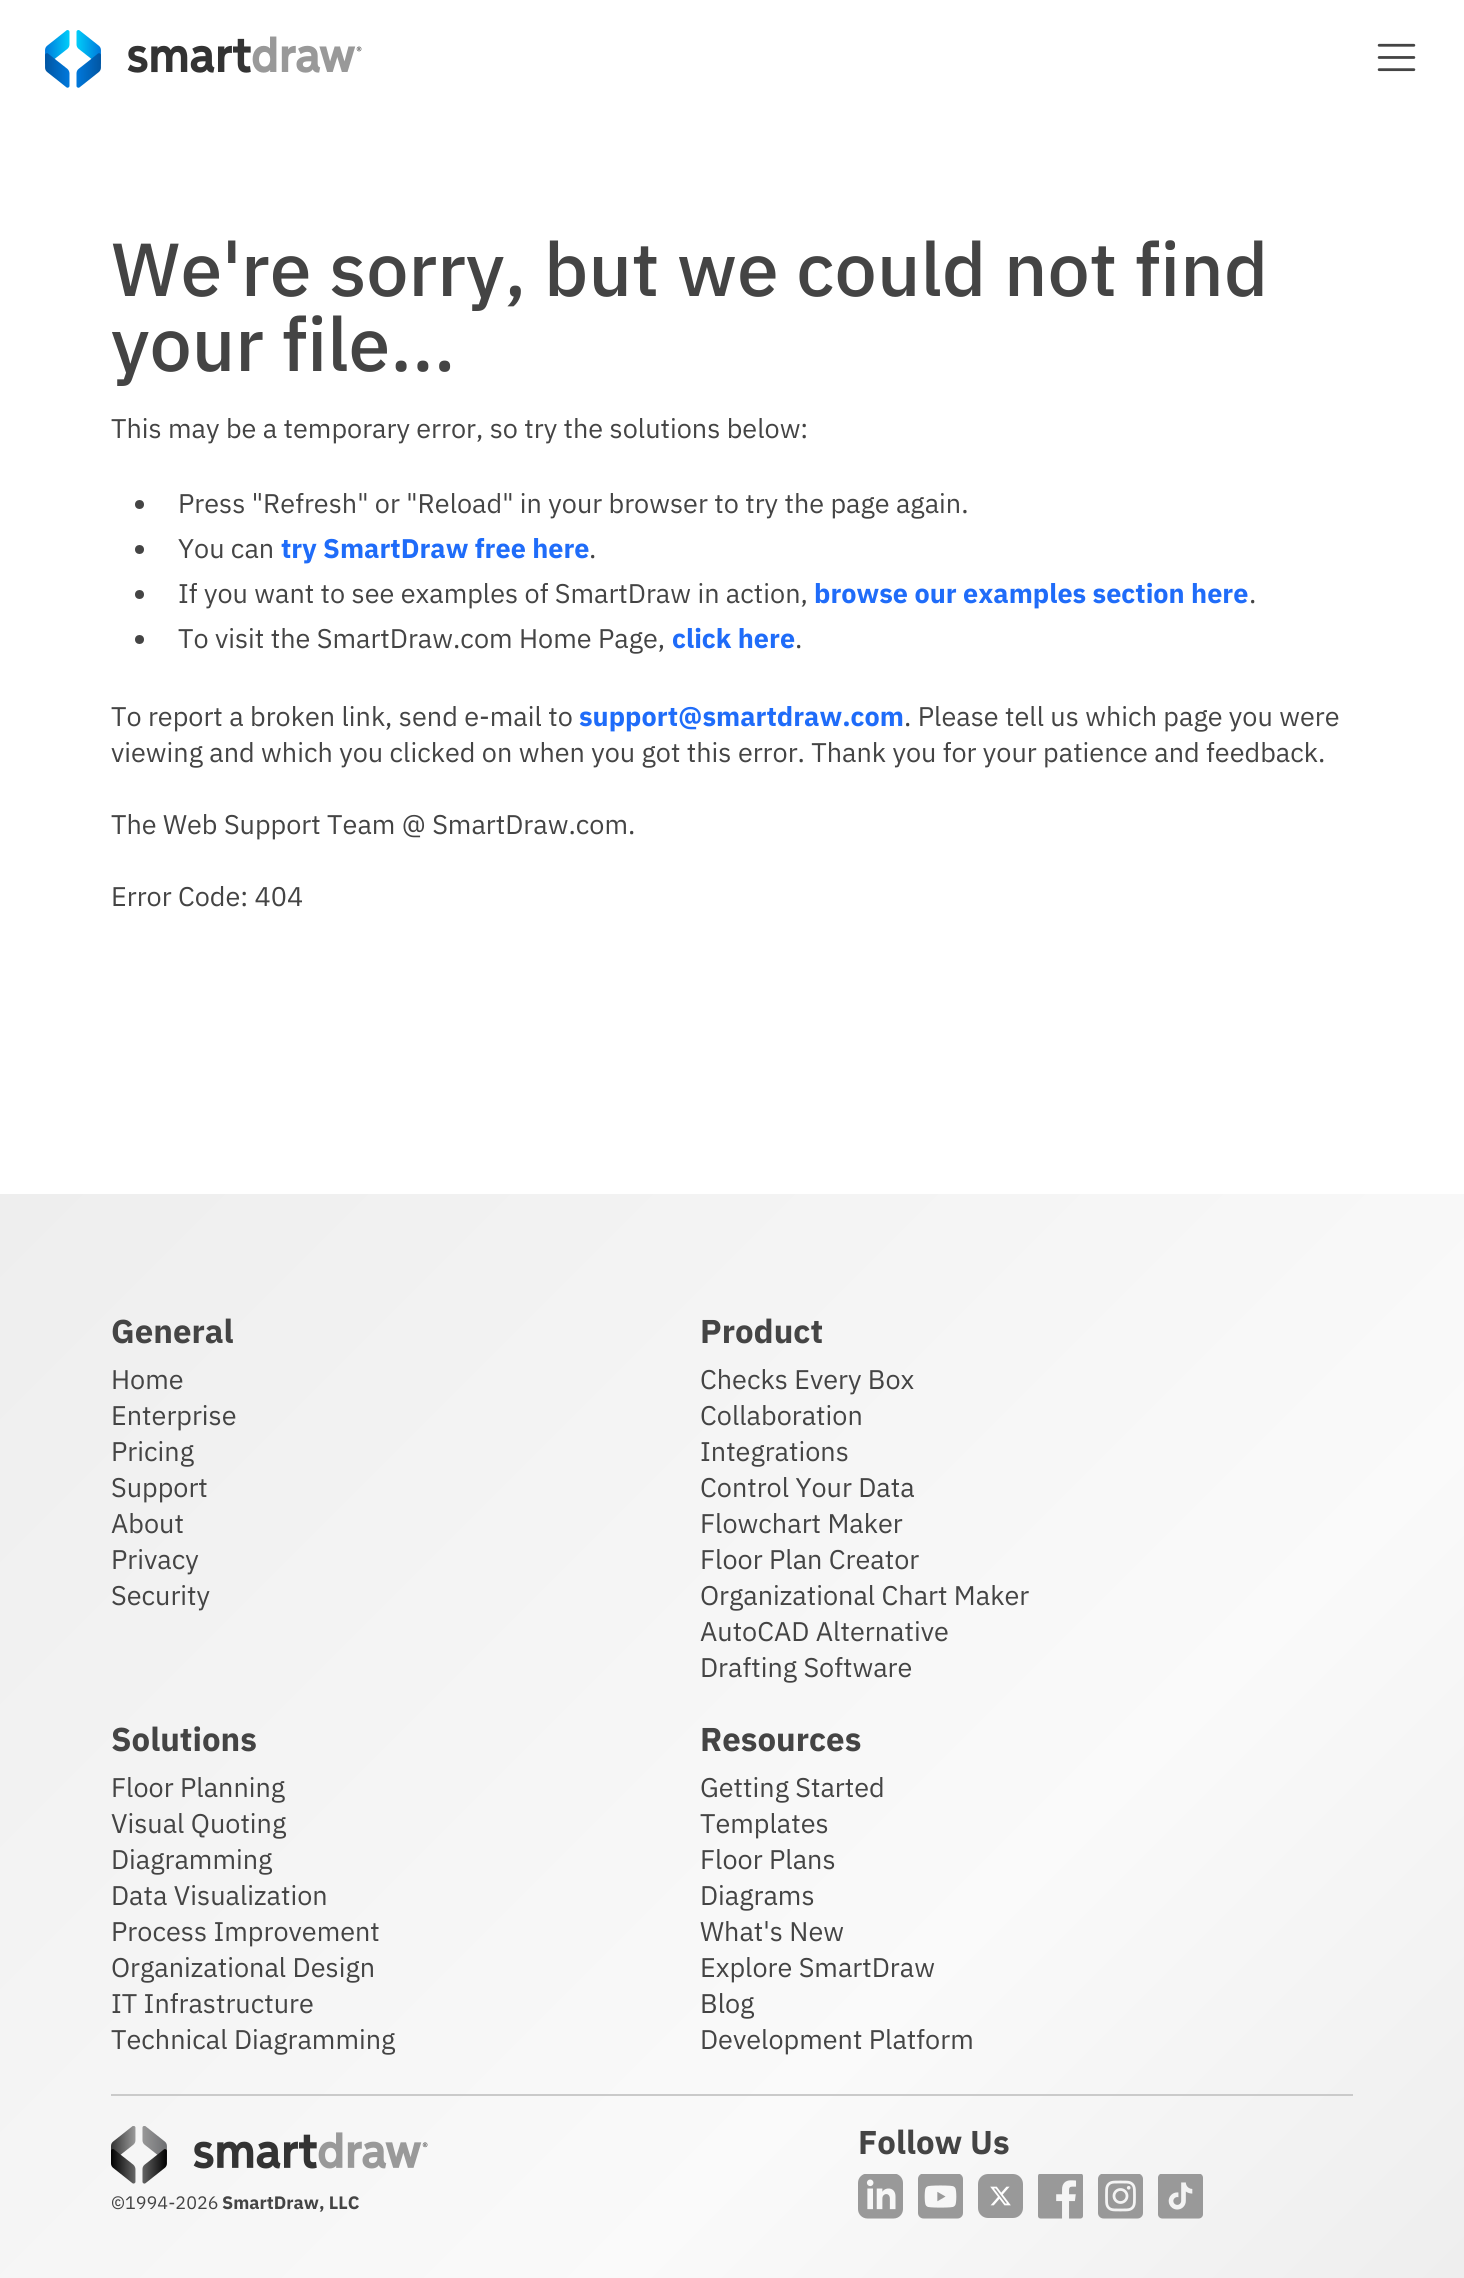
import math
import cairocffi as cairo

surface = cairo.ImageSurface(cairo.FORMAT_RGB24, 1464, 2278)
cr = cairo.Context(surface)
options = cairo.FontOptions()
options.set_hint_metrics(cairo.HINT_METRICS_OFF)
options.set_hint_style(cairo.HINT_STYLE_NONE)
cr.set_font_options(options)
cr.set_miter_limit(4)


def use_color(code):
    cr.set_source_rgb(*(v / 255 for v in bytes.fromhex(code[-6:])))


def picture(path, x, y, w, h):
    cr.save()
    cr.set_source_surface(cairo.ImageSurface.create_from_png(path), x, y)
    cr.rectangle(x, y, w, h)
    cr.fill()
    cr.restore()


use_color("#ffffff")
cr.paint()
picture("img1.png", 45, 30, 317, 58)
picture("img2.png", 1377, 43, 39, 29)
cr.select_font_face("IBM Plex Sans Medium")
cr.set_font_size(75)
use_color("#444444")
cr.move_to(111, 296)
cr.show_text("We're sorry, but we could not find")
cr.move_to(111, 371)
cr.show_text("your file...")
cr.select_font_face("IBM Plex Sans")
cr.set_font_size(27)
cr.move_to(111, 438)
cr.show_text("This may be a temporary error, so try the solutions below:")
cr.new_path()
cr.arc(139.5, 504.5, 4.5, 0, 2 * math.pi)
cr.fill()
cr.move_to(178, 513)
cr.show_text("Press \"Refresh\" or \"Reload\" in your browser to try the page again.")
cr.new_path()
cr.arc(139.5, 549.5, 4.5, 0, 2 * math.pi)
cr.fill()
cr.move_to(178, 558)
cr.show_text("You can")
cr.select_font_face("IBM Plex Sans", cairo.FONT_SLANT_NORMAL, cairo.FONT_WEIGHT_BOLD)
use_color("#1f6cf9")
cr.move_to(281, 558)
cr.show_text("try SmartDraw free here")
cr.select_font_face("IBM Plex Sans")
use_color("#444444")
cr.move_to(589, 558)
cr.show_text(".")
cr.new_path()
cr.arc(139.5, 594.5, 4.5, 0, 2 * math.pi)
cr.fill()
cr.move_to(178, 603)
cr.show_text("If you want to see examples of SmartDraw in action,")
cr.select_font_face("IBM Plex Sans", cairo.FONT_SLANT_NORMAL, cairo.FONT_WEIGHT_BOLD)
use_color("#1f6cf9")
cr.move_to(814, 603)
cr.show_text("browse our examples section here")
cr.select_font_face("IBM Plex Sans")
use_color("#444444")
cr.move_to(1249, 603)
cr.show_text(".")
cr.new_path()
cr.arc(139.5, 639.5, 4.5, 0, 2 * math.pi)
cr.fill()
cr.move_to(178, 648)
cr.show_text("To visit the SmartDraw.com Home Page,")
cr.select_font_face("IBM Plex Sans", cairo.FONT_SLANT_NORMAL, cairo.FONT_WEIGHT_BOLD)
use_color("#1f6cf9")
cr.move_to(672, 648)
cr.show_text("click here")
cr.select_font_face("IBM Plex Sans")
use_color("#444444")
cr.move_to(795, 648)
cr.show_text(".")
cr.move_to(111, 726)
cr.show_text("To report a broken link, send e-mail to")
cr.select_font_face("IBM Plex Sans", cairo.FONT_SLANT_NORMAL, cairo.FONT_WEIGHT_BOLD)
use_color("#1f6cf9")
cr.move_to(579, 726)
cr.show_text("support@smartdraw.com")
cr.select_font_face("IBM Plex Sans")
use_color("#444444")
cr.move_to(904, 726)
cr.show_text(". Please tell us which page you were")
cr.move_to(111, 762)
cr.show_text("viewing and which you clicked on when you got this error. Thank you for your patience and feedback.")
cr.move_to(111, 834)
cr.show_text("The Web Support Team @ SmartDraw.com.")
cr.move_to(111, 906)
cr.show_text("Error Code: 404")
gradient = cairo.LinearGradient(95, 1099, 1369, 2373)
gradient.add_color_stop_rgba(0, 0.933, 0.933, 0.933, 1)
gradient.add_color_stop_rgba(0.67, 0.98, 0.98, 0.98, 1)
gradient.add_color_stop_rgba(1, 0.933, 0.933, 0.933, 1)
cr.set_source(gradient)
cr.rectangle(0, 1194, 1464, 1084)
cr.fill()
use_color("#cacaca")
cr.rectangle(111, 2094, 1242, 2)
cr.fill()
cr.select_font_face("IBM Plex Sans", cairo.FONT_SLANT_NORMAL, cairo.FONT_WEIGHT_BOLD)
cr.set_font_size(33)
use_color("#444444")
cr.move_to(111, 1343)
cr.show_text("General")
cr.select_font_face("IBM Plex Sans")
cr.set_font_size(27)
cr.move_to(111, 1389)
cr.show_text("Home")
cr.move_to(111, 1425)
cr.show_text("Enterprise")
cr.move_to(111, 1461)
cr.show_text("Pricing")
cr.move_to(111, 1497)
cr.show_text("Support")
cr.move_to(111, 1533)
cr.show_text("About")
cr.move_to(111, 1569)
cr.show_text("Privacy")
cr.move_to(111, 1605)
cr.show_text("Security")
cr.select_font_face("IBM Plex Sans", cairo.FONT_SLANT_NORMAL, cairo.FONT_WEIGHT_BOLD)
cr.set_font_size(33)
cr.move_to(700, 1343)
cr.show_text("Product")
cr.select_font_face("IBM Plex Sans")
cr.set_font_size(27)
cr.move_to(700, 1389)
cr.show_text("Checks Every Box")
cr.move_to(700, 1425)
cr.show_text("Collaboration")
cr.move_to(700, 1461)
cr.show_text("Integrations")
cr.move_to(700, 1497)
cr.show_text("Control Your Data")
cr.move_to(700, 1533)
cr.show_text("Flowchart Maker")
cr.move_to(700, 1569)
cr.show_text("Floor Plan Creator")
cr.move_to(700, 1605)
cr.show_text("Organizational Chart Maker")
cr.move_to(700, 1641)
cr.show_text("AutoCAD Alternative")
cr.move_to(700, 1677)
cr.show_text("Drafting Software")
cr.select_font_face("IBM Plex Sans", cairo.FONT_SLANT_NORMAL, cairo.FONT_WEIGHT_BOLD)
cr.set_font_size(33)
cr.move_to(111, 1751)
cr.show_text("Solutions")
cr.select_font_face("IBM Plex Sans")
cr.set_font_size(27)
cr.move_to(111, 1797)
cr.show_text("Floor Planning")
cr.move_to(111, 1833)
cr.show_text("Visual Quoting")
cr.move_to(111, 1869)
cr.show_text("Diagramming")
cr.move_to(111, 1905)
cr.show_text("Data Visualization")
cr.move_to(111, 1941)
cr.show_text("Process Improvement")
cr.move_to(111, 1977)
cr.show_text("Organizational Design")
cr.move_to(111, 2013)
cr.show_text("IT Infrastructure")
cr.move_to(111, 2049)
cr.show_text("Technical Diagramming")
cr.select_font_face("IBM Plex Sans", cairo.FONT_SLANT_NORMAL, cairo.FONT_WEIGHT_BOLD)
cr.set_font_size(33)
cr.move_to(700, 1751)
cr.show_text("Resources")
cr.select_font_face("IBM Plex Sans")
cr.set_font_size(27)
cr.move_to(700, 1797)
cr.show_text("Getting Started")
cr.move_to(700, 1833)
cr.show_text("Templates")
cr.move_to(700, 1869)
cr.show_text("Floor Plans")
cr.move_to(700, 1905)
cr.show_text("Diagrams")
cr.move_to(700, 1941)
cr.show_text("What's New")
cr.move_to(700, 1977)
cr.show_text("Explore SmartDraw")
cr.move_to(700, 2013)
cr.show_text("Blog")
cr.move_to(700, 2049)
cr.show_text("Development Platform")
cr.select_font_face("IBM Plex Sans", cairo.FONT_SLANT_NORMAL, cairo.FONT_WEIGHT_BOLD)
cr.set_font_size(33)
cr.move_to(858, 2154)
cr.show_text("Follow Us")
picture("img3.png", 858, 2174, 45, 45)
picture("img4.png", 918, 2174, 45, 45)
picture("img5.png", 978, 2174, 45, 44)
picture("img6.png", 1038, 2174, 45, 45)
picture("img7.png", 1098, 2174, 45, 45)
picture("img8.png", 1158, 2174, 45, 45)
picture("img9.png", 111, 2126, 317, 58)
cr.select_font_face("IBM Plex Sans")
cr.set_font_size(18)
cr.move_to(111, 2209)
cr.show_text("©1994-2026")
cr.select_font_face("IBM Plex Sans", cairo.FONT_SLANT_NORMAL, cairo.FONT_WEIGHT_BOLD)
cr.move_to(222, 2209)
cr.show_text("SmartDraw, LLC")
surface.write_to_png("result.png")
